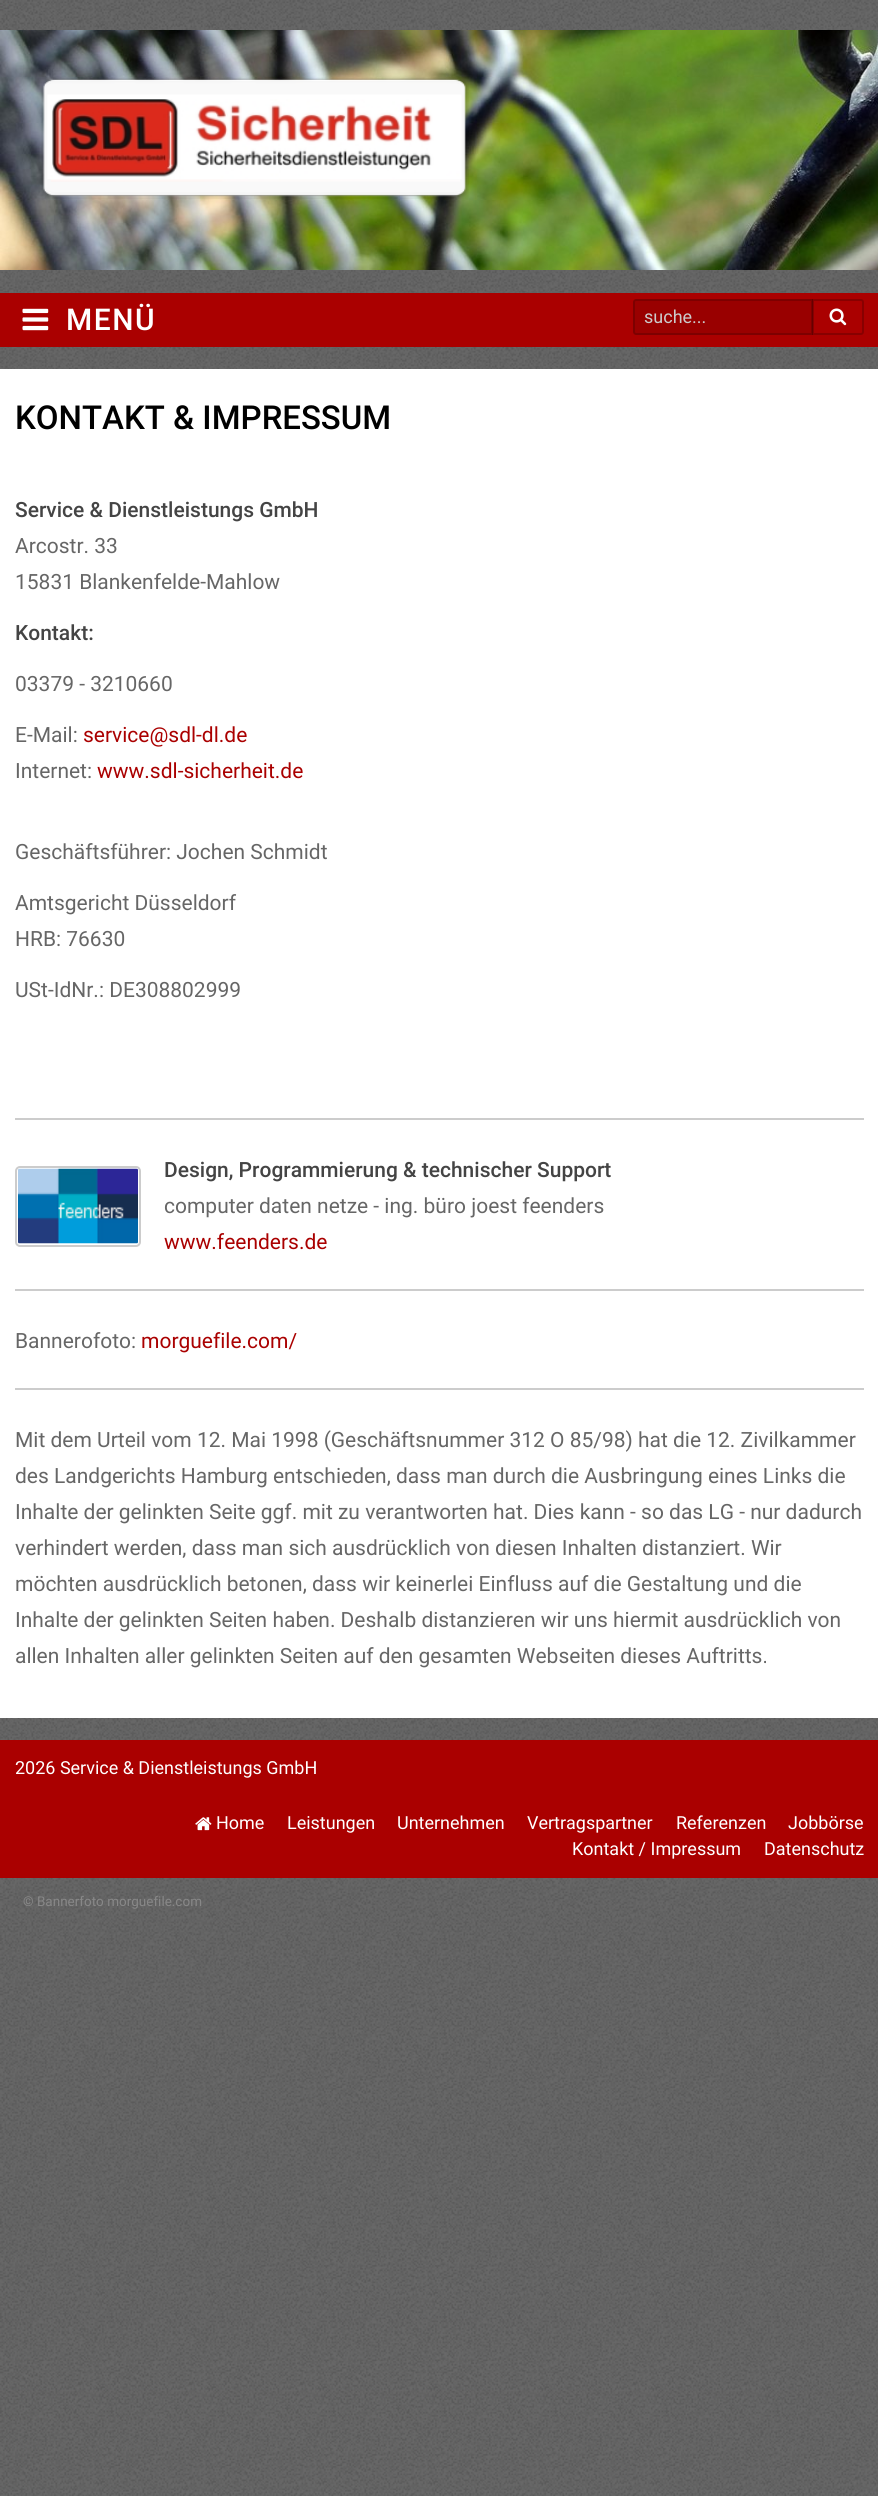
import math
import cairocffi as cairo

surface = cairo.ImageSurface(cairo.FORMAT_RGB24, 878, 2496)
cr = cairo.Context(surface)
options = cairo.FontOptions()
options.set_hint_metrics(cairo.HINT_METRICS_OFF)
options.set_hint_style(cairo.HINT_STYLE_NONE)
cr.set_font_options(options)
cr.set_miter_limit(4)


def use_color(code):
    cr.set_source_rgb(*(v / 255 for v in bytes.fromhex(code[-6:])))


def spaced_text(x, y, s, letter, word):
    cr.move_to(x, y)
    for ch in s:
        cr.show_text(ch)
        cr.rel_move_to(letter + word * (ch == ' '), 0)


def round_rect(x, y, w, h, r):
    cr.new_sub_path()
    for i, (u, v) in enumerate([(x + w - r, y + h - r), (x + r, y + h - r), (x + r, y + r), (x + w - r, y + r)]):
        cr.arc(u, v, r, i * math.pi / 2, (i + 1) * math.pi / 2)
    cr.close_path()


def picture(path, x, y, w, h):
    cr.save()
    cr.set_source_surface(cairo.ImageSurface.create_from_png(path), x, y)
    cr.rectangle(x, y, w, h)
    cr.fill()
    cr.restore()


use_color("#5e5e5e")
cr.paint()
picture("img1.png", 0, 0, 878, 2496)
picture("img2.png", 0, 30, 878, 240)
picture("img3.png", 41, 77, 428, 122)
use_color("#aa0000")
cr.rectangle(0, 293, 878, 54)
cr.fill()
picture("img4.png", 22, 308, 27, 23)
cr.select_font_face("Roboto Medium")
cr.set_font_size(30)
use_color("#ffffff")
spaced_text(66, 330, "MENÜ", 1.5, 0)
cr.new_path()
cr.move_to(813, 300)
cr.line_to(861, 300)
cr.curve_to(862, 300, 863, 301, 863, 302)
cr.line_to(863, 332)
cr.curve_to(863, 333, 862, 334, 861, 334)
cr.line_to(813, 334)
cr.close_path()
use_color("#880000")
cr.stroke()
cr.set_source_rgba(0, 0, 0, 0.1)
cr.new_path()
cr.move_to(636, 299)
cr.line_to(813, 299)
cr.line_to(813, 335)
cr.line_to(636, 335)
cr.curve_to(634.5, 335, 633, 333.5, 633, 332)
cr.line_to(633, 302)
cr.curve_to(633, 300.5, 634.5, 299, 636, 299)
cr.close_path()
cr.fill()
cr.new_path()
cr.move_to(636, 300)
cr.line_to(812, 300)
cr.line_to(812, 334)
cr.line_to(636, 334)
cr.curve_to(635, 334, 634, 333, 634, 332)
cr.line_to(634, 302)
cr.curve_to(634, 301, 635, 300, 636, 300)
cr.close_path()
cr.set_source_rgba(0, 0, 0, 0.18)
cr.stroke()
cr.select_font_face("Roboto")
cr.set_font_size(18)
use_color("#cccccc")
cr.move_to(644, 323)
cr.show_text("suche...")
picture("img5.png", 829, 308, 18, 18)
use_color("#ffffff")
cr.rectangle(0, 369, 878, 1349)
cr.fill()
cr.select_font_face("Roboto Medium")
cr.set_font_size(33)
use_color("#000000")
cr.move_to(15, 429)
cr.show_text("KONTAKT & IMPRESSUM")
cr.set_font_size(21)
use_color("#444444")
cr.move_to(15, 517)
cr.show_text("Service & Dienstleistungs GmbH")
cr.select_font_face("Roboto")
use_color("#666666")
cr.move_to(15, 553)
cr.show_text("Arcostr. 33")
cr.move_to(15, 589)
cr.show_text("15831 Blankenfelde-Mahlow")
cr.select_font_face("Roboto Medium")
use_color("#444444")
cr.move_to(15, 640)
cr.show_text("Kontakt:")
cr.select_font_face("Roboto")
use_color("#666666")
cr.move_to(15, 691)
cr.show_text("03379 - 3210660")
cr.move_to(15, 742)
cr.show_text("E-Mail:")
use_color("#aa0000")
cr.move_to(83, 742)
cr.show_text("service@sdl-dl.de")
use_color("#666666")
cr.move_to(15, 778)
cr.show_text("Internet:")
use_color("#aa0000")
cr.move_to(97, 778)
cr.show_text("www.sdl-sicherheit.de")
use_color("#666666")
cr.move_to(15, 859)
cr.show_text("Geschäftsführer: Jochen Schmidt")
cr.move_to(15, 910)
cr.show_text("Amtsgericht Düsseldorf")
cr.move_to(15, 946)
cr.show_text("HRB: 76630")
cr.move_to(15, 997)
cr.show_text("USt-IdNr.: DE308802999")
use_color("#cccccc")
cr.rectangle(15, 1118, 849, 2)
cr.fill()
round_rect(16, 1167, 124, 79, 4)
cr.stroke()
picture("img6.png", 18, 1168, 120, 76)
cr.select_font_face("Roboto Medium")
use_color("#444444")
cr.move_to(164, 1177)
cr.show_text("Design, Programmierung & technischer Support")
cr.select_font_face("Roboto")
use_color("#666666")
cr.move_to(164, 1213)
cr.show_text("computer daten netze - ing. büro joest feenders")
use_color("#aa0000")
cr.move_to(164, 1249)
cr.show_text("www.feenders.de")
use_color("#cccccc")
cr.rectangle(15, 1289, 849, 2)
cr.fill()
use_color("#666666")
cr.move_to(15, 1348)
cr.show_text("Bannerofoto:")
use_color("#aa0000")
cr.move_to(141, 1348)
cr.show_text("morguefile.com/")
use_color("#cccccc")
cr.rectangle(15, 1388, 849, 2)
cr.fill()
use_color("#666666")
cr.move_to(15, 1447)
cr.show_text("Mit dem Urteil vom 12. Mai 1998 (Geschäftsnummer 312 O 85/98) hat die 12. Zivilkammer")
cr.move_to(15, 1483)
cr.show_text("des Landgerichts Hamburg entschieden, dass man durch die Ausbringung eines Links die")
cr.move_to(15, 1519)
cr.show_text("Inhalte der gelinkten Seite ggf. mit zu verantworten hat. Dies kann - so das LG - nur dadurch")
cr.move_to(15, 1555)
cr.show_text("verhindert werden, dass man sich ausdrücklich von diesen Inhalten distanziert. Wir")
cr.move_to(15, 1591)
cr.show_text("möchten ausdrücklich betonen, dass wir keinerlei Einfluss auf die Gestaltung und die")
cr.move_to(15, 1627)
cr.show_text("Inhalte der gelinkten Seiten haben. Deshalb distanzieren wir uns hiermit ausdrücklich von")
cr.move_to(15, 1663)
cr.show_text("allen Inhalten aller gelinkten Seiten auf den gesamten Webseiten dieses Auftritts.")
use_color("#aa0000")
cr.rectangle(0, 1740, 878, 138)
cr.fill()
cr.set_font_size(18)
use_color("#ffffff")
cr.move_to(15, 1774)
cr.show_text("2026 Service & Dienstleistungs GmbH")
picture("img7.png", 195, 1817, 17, 14)
cr.move_to(216, 1829)
cr.show_text("Home")
cr.move_to(287, 1829)
cr.show_text("Leistungen")
cr.move_to(397, 1829)
cr.show_text("Unternehmen")
cr.move_to(527, 1829)
cr.show_text("Vertragspartner")
cr.move_to(676, 1829)
cr.show_text("Referenzen")
cr.move_to(788, 1829)
cr.show_text("Jobbörse")
cr.move_to(572, 1855)
cr.show_text("Kontakt / Impressum")
cr.move_to(764, 1855)
cr.show_text("Datenschutz")
cr.set_font_size(13.5)
use_color("#888888")
cr.move_to(23, 1906)
cr.show_text("© Bannerfoto morguefile.com")
surface.write_to_png("result.png")
